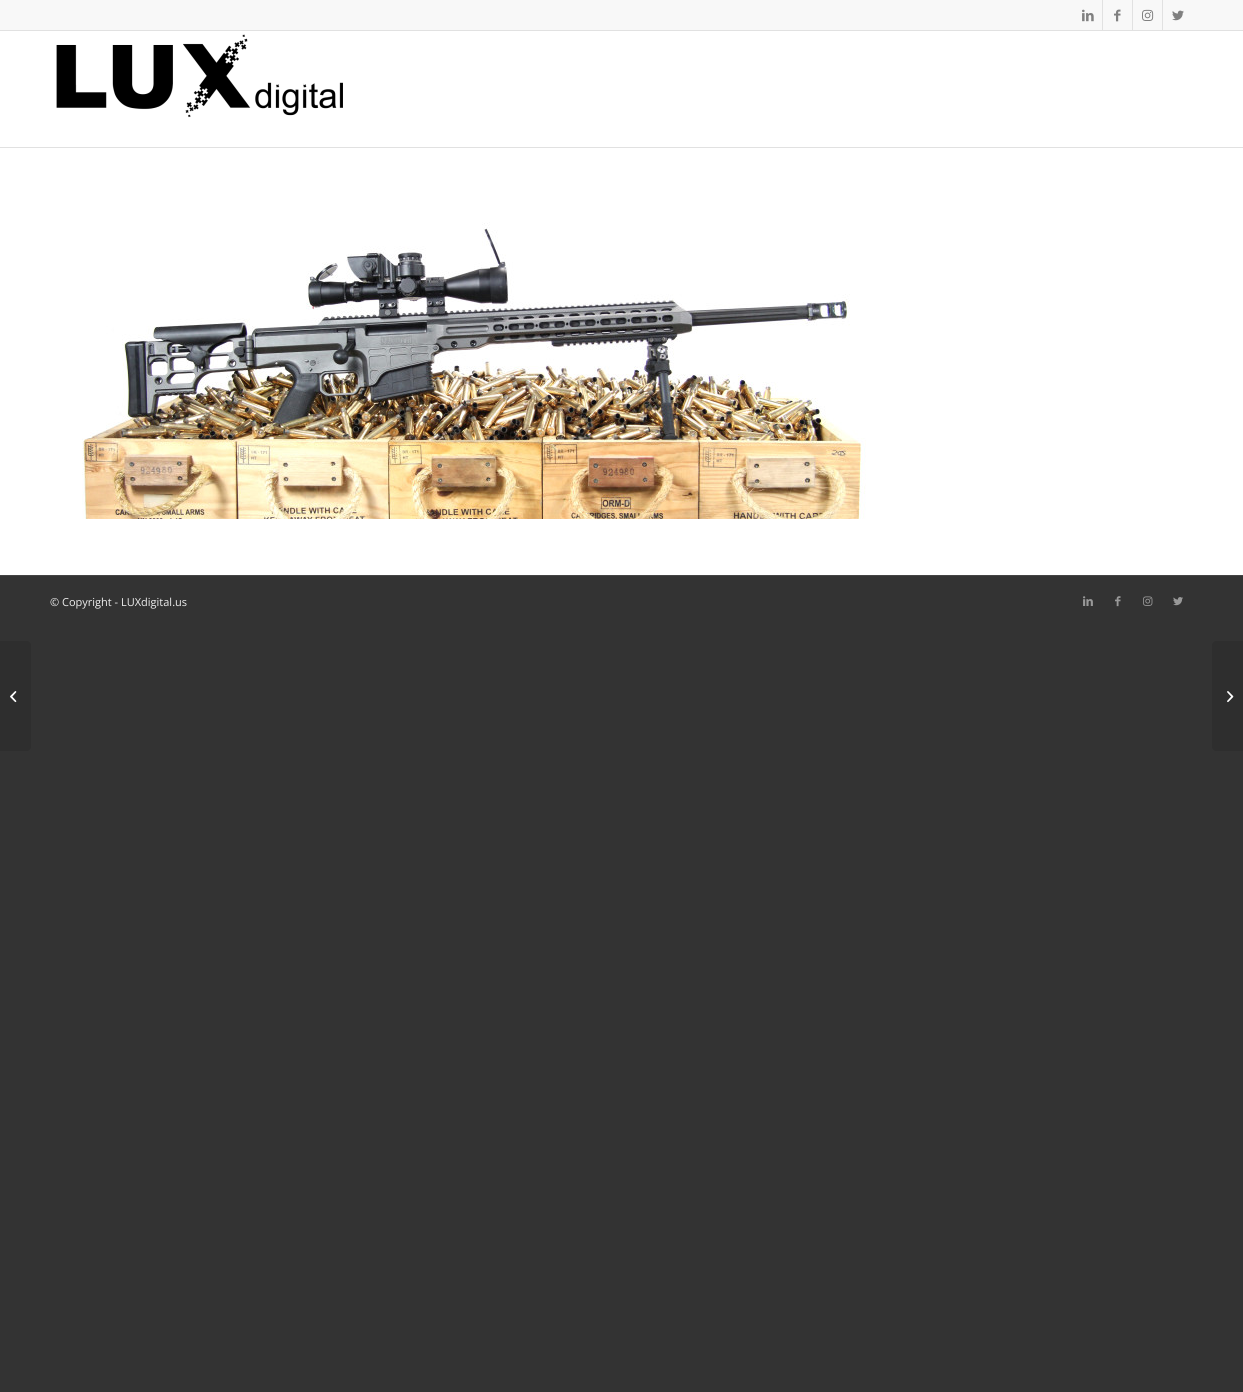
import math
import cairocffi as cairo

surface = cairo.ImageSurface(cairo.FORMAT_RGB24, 1243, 1392)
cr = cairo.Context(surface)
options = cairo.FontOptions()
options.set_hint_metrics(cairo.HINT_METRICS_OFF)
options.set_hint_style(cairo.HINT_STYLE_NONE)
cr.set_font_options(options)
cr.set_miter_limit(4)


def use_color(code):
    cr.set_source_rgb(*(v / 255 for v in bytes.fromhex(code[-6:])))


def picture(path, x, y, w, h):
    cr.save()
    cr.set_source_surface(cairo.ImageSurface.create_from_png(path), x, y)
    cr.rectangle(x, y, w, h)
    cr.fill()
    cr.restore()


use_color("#333333")
cr.paint()
use_color("#f8f8f8")
cr.rectangle(0, 0, 1243, 30)
cr.fill()
use_color("#e1e1e1")
cr.rectangle(0, 30, 1243, 1)
cr.fill()
cr.rectangle(1102, 0, 1, 30)
cr.fill()
picture("img1.png", 1082, 9, 12, 13)
cr.rectangle(1132, 0, 1, 30)
cr.fill()
picture("img2.png", 1114, 9, 7, 13)
cr.rectangle(1162, 0, 1, 30)
cr.fill()
picture("img3.png", 1142, 9, 12, 12)
picture("img4.png", 1172, 10, 12, 11)
cr.rectangle(0, 147, 1243, 1)
cr.fill()
use_color("#ffffff")
cr.rectangle(0, 31, 1243, 116)
cr.fill()
picture("img5.png", 56, 34, 287, 84)
cr.rectangle(0, 148, 1243, 427)
cr.fill()
picture("img6.png", 82, 222, 784, 297)
use_color("#444444")
cr.rectangle(0, 575, 1243, 1)
cr.fill()
cr.select_font_face("Open Sans")
cr.set_font_size(11)
use_color("#eeeeee")
cr.move_to(50, 606)
cr.show_text("© Copyright - LUXdigital.us")
picture("img7.png", 1083, 596, 10, 10)
picture("img8.png", 1115, 596, 6, 11)
picture("img9.png", 1143, 596, 10, 10)
picture("img10.png", 1173, 597, 10, 9)
use_color("#2e2e2e")
cr.new_path()
cr.move_to(0, 641)
cr.line_to(27, 641)
cr.curve_to(29, 641, 31, 643, 31, 645)
cr.line_to(31, 747)
cr.curve_to(31, 749, 29, 751, 27, 751)
cr.line_to(0, 751)
cr.close_path()
cr.fill()
picture("img11.png", 10, 691, 7, 12)
cr.new_path()
cr.move_to(1216, 641)
cr.line_to(1243, 641)
cr.line_to(1243, 751)
cr.line_to(1216, 751)
cr.curve_to(1214, 751, 1212, 749, 1212, 747)
cr.line_to(1212, 645)
cr.curve_to(1212, 643, 1214, 641, 1216, 641)
cr.close_path()
cr.fill()
picture("img12.png", 1227, 691, 7, 12)
surface.write_to_png("result.png")
